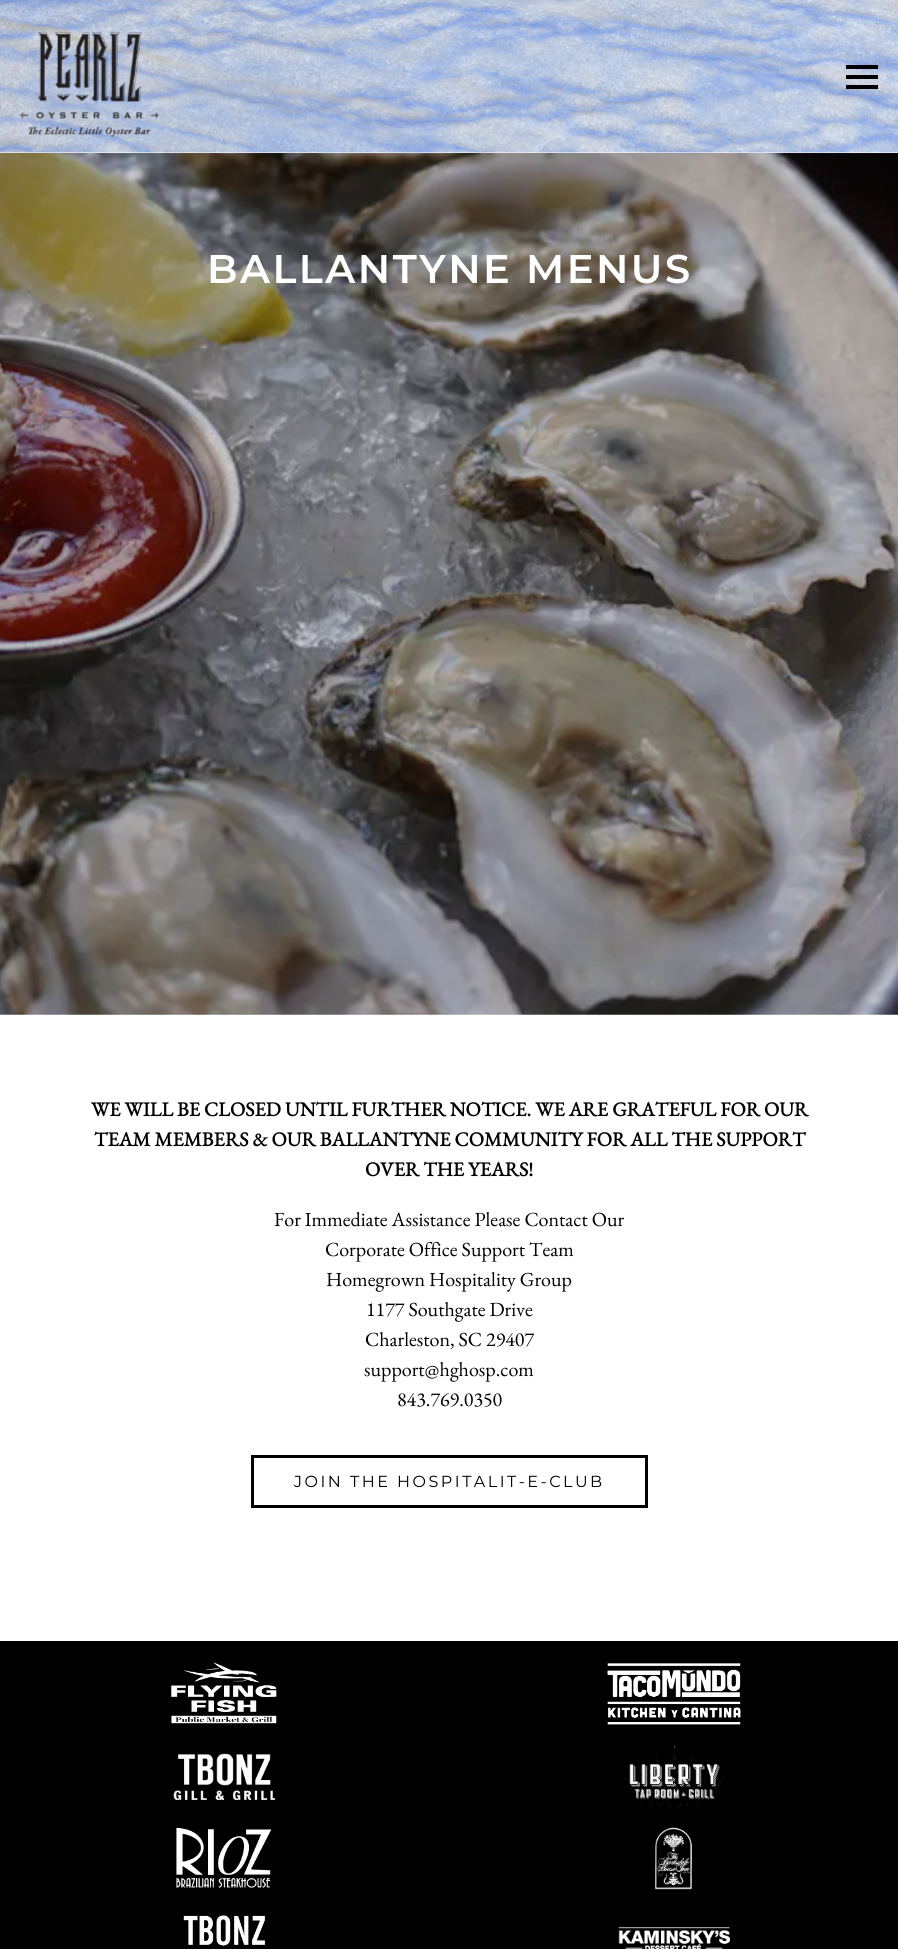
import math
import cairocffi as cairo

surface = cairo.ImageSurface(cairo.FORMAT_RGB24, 898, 1949)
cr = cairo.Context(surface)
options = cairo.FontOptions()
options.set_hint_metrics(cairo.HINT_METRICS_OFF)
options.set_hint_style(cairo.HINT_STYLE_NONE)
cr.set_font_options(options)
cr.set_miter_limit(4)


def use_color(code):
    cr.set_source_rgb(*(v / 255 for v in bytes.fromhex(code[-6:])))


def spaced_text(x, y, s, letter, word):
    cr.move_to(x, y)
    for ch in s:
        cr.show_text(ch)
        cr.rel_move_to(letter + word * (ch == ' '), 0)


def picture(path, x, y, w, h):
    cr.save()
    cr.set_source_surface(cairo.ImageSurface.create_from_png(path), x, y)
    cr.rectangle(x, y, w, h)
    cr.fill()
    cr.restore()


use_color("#ffffff")
cr.paint()
picture("img3.png", 0, 153, 898, 862)
picture("img1.png", 0, 0, 898, 154)
picture("img2.png", 19, 31, 140, 107)
use_color("#000000")
cr.rectangle(846, 65, 32, 4)
cr.fill()
cr.rectangle(846, 75, 32, 4)
cr.fill()
cr.rectangle(846, 85, 32, 4)
cr.fill()
cr.select_font_face("Montserrat SemiBold")
cr.set_font_size(40)
use_color("#ffffff")
spaced_text(207, 283, "BALLANTYNE MENUS", 2.5, 0)
cr.select_font_face("EB Garamond", cairo.FONT_SLANT_NORMAL, cairo.FONT_WEIGHT_BOLD)
cr.set_font_size(20)
use_color("#000000")
cr.move_to(91, 1116)
cr.show_text("WE WILL BE CLOSED UNTIL FURTHER NOTICE. WE ARE GRATEFUL FOR OUR")
cr.move_to(94, 1146)
cr.show_text("TEAM MEMBERS & OUR BALLANTYNE COMMUNITY FOR ALL THE SUPPORT")
cr.move_to(365, 1176)
cr.show_text("OVER THE YEARS!")
cr.select_font_face("EB Garamond")
cr.move_to(274, 1226)
cr.show_text("For Immediate Assistance Please Contact Our")
cr.move_to(325, 1256)
cr.show_text("Corporate Office Support Team")
cr.move_to(326, 1286)
cr.show_text("Homegrown Hospitality Group")
cr.move_to(366, 1316)
cr.show_text("1177 Southgate Drive")
cr.move_to(365, 1346)
cr.show_text("Charleston, SC 29407")
cr.move_to(364, 1376)
cr.show_text("support@hghosp.com")
cr.move_to(397, 1406)
cr.show_text("843.769.0350")
cr.rectangle(252.5, 1456.5, 394, 50)
cr.set_line_width(3)
cr.stroke()
cr.select_font_face("Montserrat")
cr.set_font_size(16)
spaced_text(294, 1487, "JOIN THE HOSPITALIT-E-CLUB", 2.5, 0)
cr.rectangle(0, 1641, 898, 308)
cr.fill()
picture("img4.png", 171, 1662, 106, 62)
picture("img5.png", 607, 1663, 134, 62)
picture("img6.png", 173, 1753, 102, 47)
picture("img7.png", 625, 1745, 99, 63)
picture("img8.png", 176, 1827, 96, 61)
picture("img9.png", 655, 1827, 37, 63)
picture("img10.png", 183, 1915, 83, 31)
picture("img11.png", 618, 1927, 112, 22)
surface.write_to_png("result.png")
